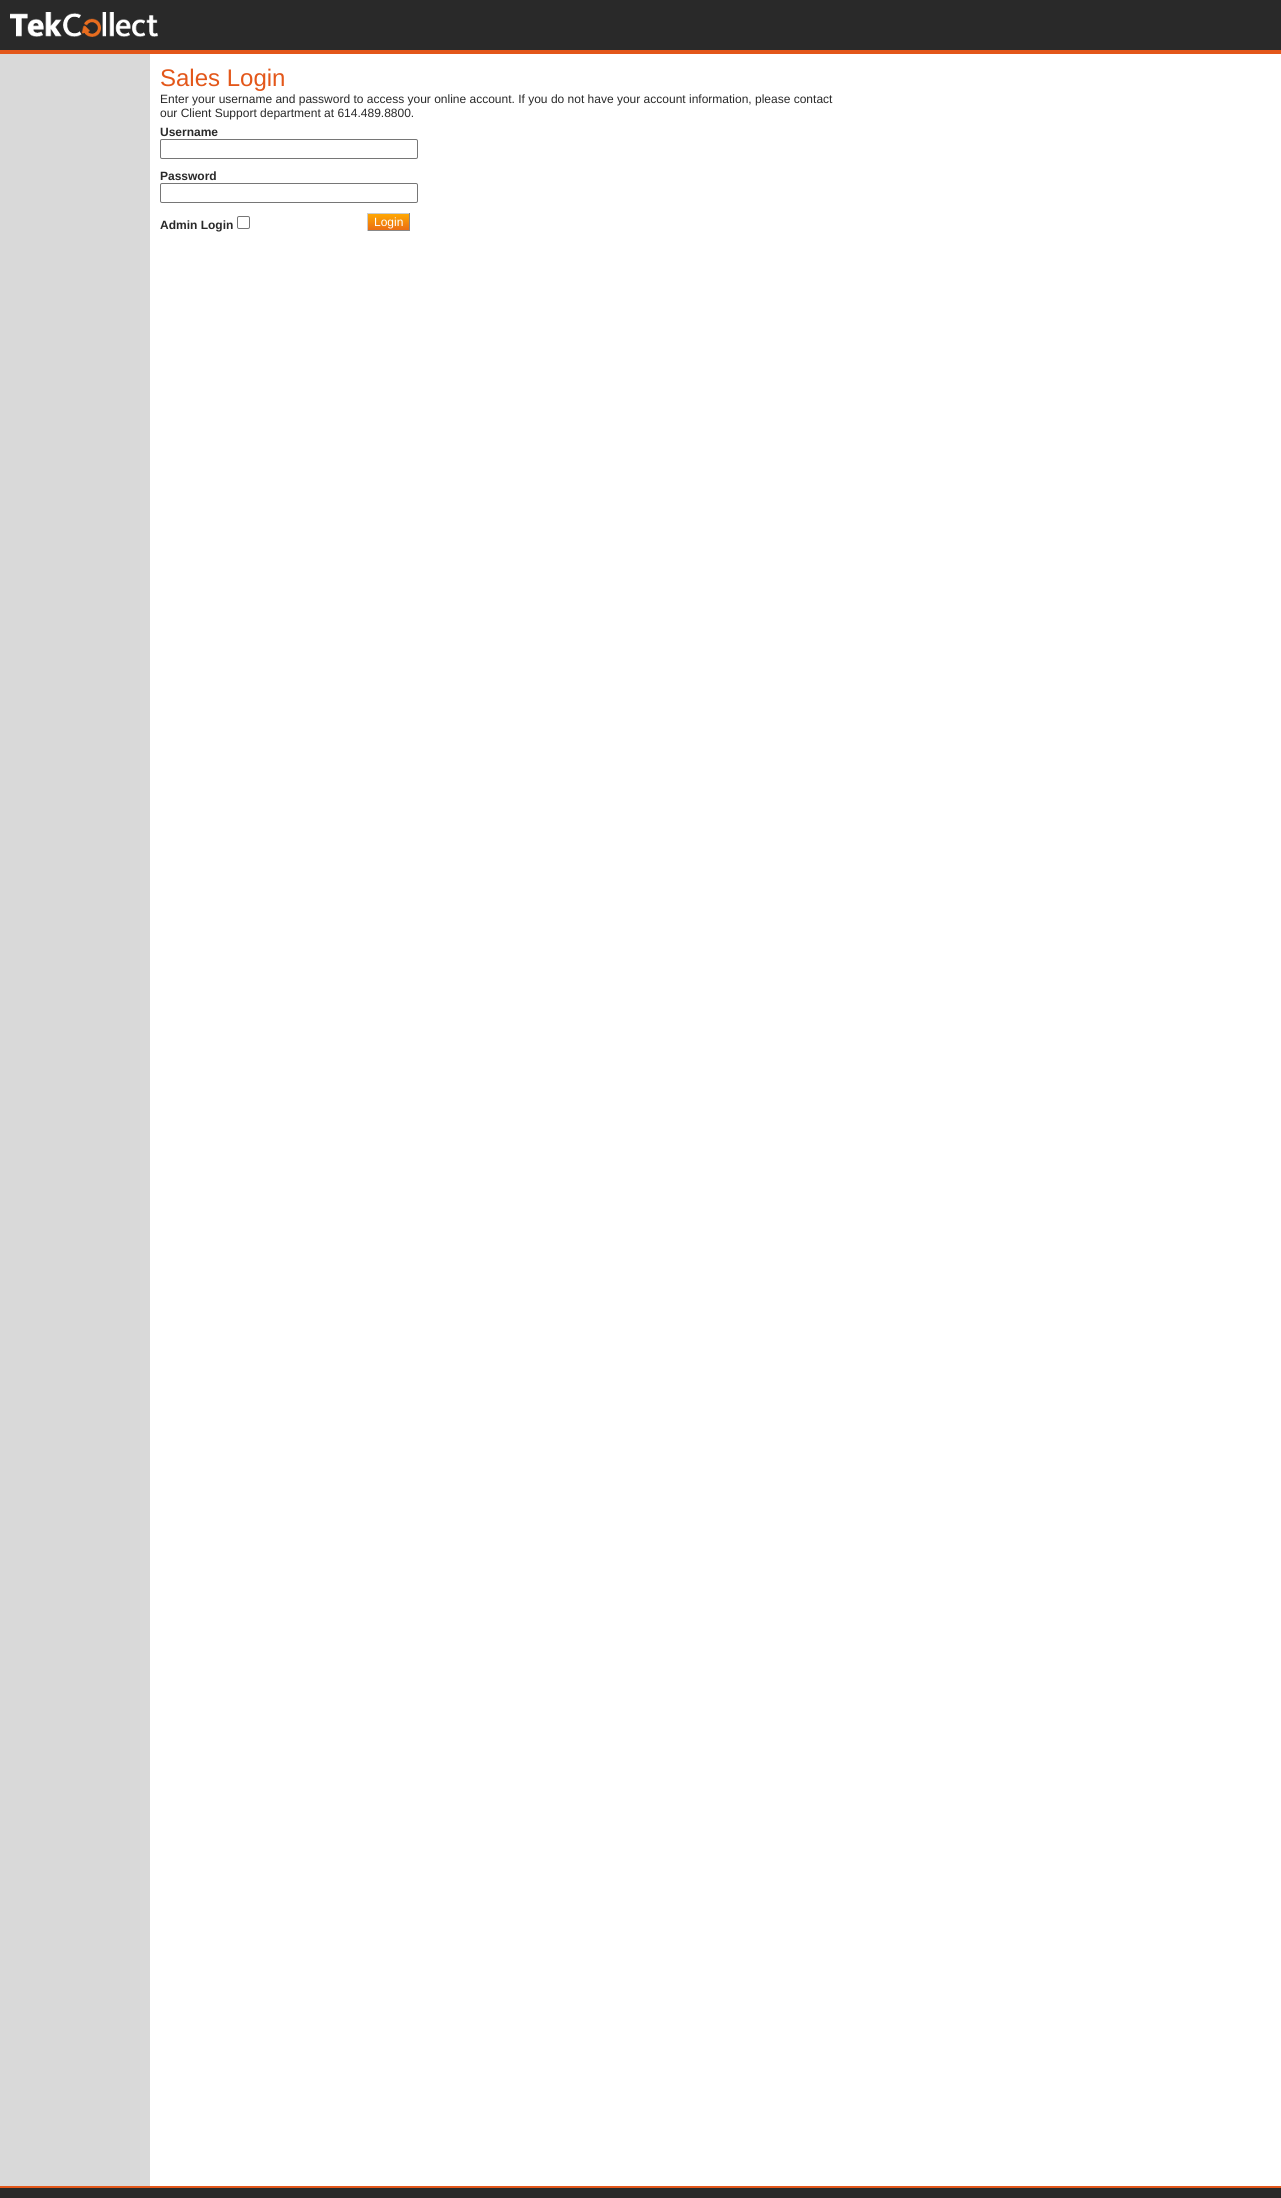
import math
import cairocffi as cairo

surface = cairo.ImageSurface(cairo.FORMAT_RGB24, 1281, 2198)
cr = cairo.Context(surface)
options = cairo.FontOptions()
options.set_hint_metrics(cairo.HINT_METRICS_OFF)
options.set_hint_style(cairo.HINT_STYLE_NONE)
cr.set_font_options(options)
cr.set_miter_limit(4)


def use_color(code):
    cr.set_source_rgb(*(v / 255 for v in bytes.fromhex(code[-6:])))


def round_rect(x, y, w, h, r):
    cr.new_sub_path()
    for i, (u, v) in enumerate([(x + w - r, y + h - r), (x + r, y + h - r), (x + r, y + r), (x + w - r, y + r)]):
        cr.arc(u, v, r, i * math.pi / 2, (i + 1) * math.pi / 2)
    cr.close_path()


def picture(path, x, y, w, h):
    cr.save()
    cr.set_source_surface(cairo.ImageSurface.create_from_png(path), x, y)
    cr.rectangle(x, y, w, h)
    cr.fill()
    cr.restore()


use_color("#ffffff")
cr.paint()
use_color("#292929")
cr.rectangle(0, 0, 1281, 50)
cr.fill()
use_color("#e3571a")
cr.rectangle(0, 50, 1281, 4)
cr.fill()
picture("img1.png", 10, 12, 148, 25)
use_color("#d9d9d9")
cr.rectangle(0, 54, 150, 2132)
cr.fill()
cr.select_font_face("Liberation Sans")
cr.set_font_size(24)
use_color("#e3571a")
cr.move_to(160, 86)
cr.show_text("Sales Login")
cr.set_font_size(12)
use_color("#292929")
cr.move_to(160, 103)
cr.show_text("Enter your username and password to access your online account. If you do not have your account information, please contact")
cr.move_to(160, 117)
cr.show_text("our Client Support department at 614.489.8800.")
cr.select_font_face("Liberation Sans", cairo.FONT_SLANT_NORMAL, cairo.FONT_WEIGHT_BOLD)
cr.move_to(160, 136)
cr.show_text("Username")
round_rect(160.5, 139.5, 257, 19, 1.5)
use_color("#767676")
cr.set_line_width(1)
cr.stroke()
use_color("#292929")
cr.move_to(160, 180)
cr.show_text("Password")
round_rect(160.5, 183.5, 257, 19, 1.5)
use_color("#767676")
cr.stroke()
use_color("#292929")
cr.move_to(160, 229)
cr.show_text("Admin Login")
round_rect(237.5, 216.5, 12, 12, 1.5)
use_color("#767676")
cr.stroke()
picture("img2.png", 368, 214, 41, 16)
use_color("#cccccc")
cr.rectangle(367, 213, 43, 1)
cr.fill()
use_color("#888888")
cr.rectangle(409, 213, 1, 18)
cr.fill()
cr.rectangle(367, 230, 43, 1)
cr.fill()
use_color("#cccccc")
cr.rectangle(367, 213, 1, 18)
cr.fill()
cr.select_font_face("Liberation Sans")
use_color("#ffffff")
cr.move_to(374, 226)
cr.show_text("Login")
use_color("#292929")
cr.rectangle(0, 2188, 1281, 10)
cr.fill()
use_color("#e3571a")
cr.rectangle(0, 2186, 1281, 2)
cr.fill()
surface.write_to_png("result.png")
